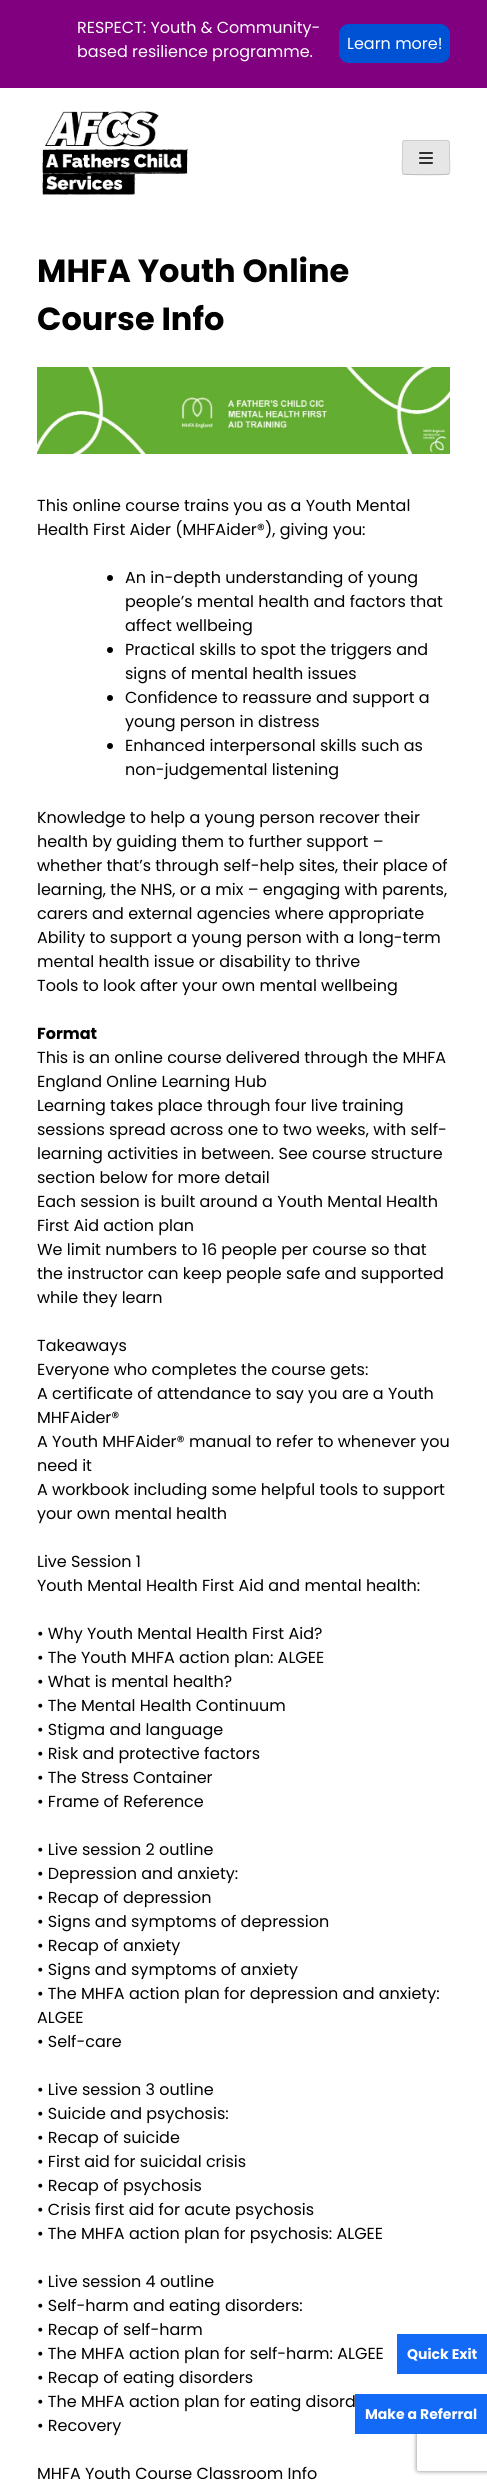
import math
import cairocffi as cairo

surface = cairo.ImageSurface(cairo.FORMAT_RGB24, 487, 2485)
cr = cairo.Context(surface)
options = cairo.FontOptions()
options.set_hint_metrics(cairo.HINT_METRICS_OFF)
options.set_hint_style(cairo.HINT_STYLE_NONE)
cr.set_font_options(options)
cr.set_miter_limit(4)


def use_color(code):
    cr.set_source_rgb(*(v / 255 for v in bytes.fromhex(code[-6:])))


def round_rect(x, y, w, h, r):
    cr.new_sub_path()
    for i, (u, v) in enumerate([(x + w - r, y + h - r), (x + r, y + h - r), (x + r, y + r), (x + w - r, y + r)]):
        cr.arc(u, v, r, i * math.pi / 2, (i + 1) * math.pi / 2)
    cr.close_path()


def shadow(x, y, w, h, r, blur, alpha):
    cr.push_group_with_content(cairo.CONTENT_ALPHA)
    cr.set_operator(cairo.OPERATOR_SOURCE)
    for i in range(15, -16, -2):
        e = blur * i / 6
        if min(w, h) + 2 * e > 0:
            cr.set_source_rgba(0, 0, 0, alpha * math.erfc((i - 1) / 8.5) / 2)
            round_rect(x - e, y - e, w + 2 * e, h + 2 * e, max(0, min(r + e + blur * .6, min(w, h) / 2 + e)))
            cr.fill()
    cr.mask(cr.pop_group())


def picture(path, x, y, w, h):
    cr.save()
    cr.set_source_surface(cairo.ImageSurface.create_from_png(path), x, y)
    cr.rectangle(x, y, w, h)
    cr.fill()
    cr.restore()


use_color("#ffffff")
cr.paint()
use_color("#800080")
cr.rectangle(0, 0, 487, 88)
cr.fill()
cr.select_font_face("Poppins")
cr.set_font_size(16)
use_color("#ffffff")
cr.move_to(77, 33)
cr.show_text("RESPECT: Youth & Community-")
cr.move_to(77, 57)
cr.show_text("based resilience programme.")
use_color("#0052d4")
round_rect(339, 24, 111, 39, 10)
cr.fill()
use_color("#ffffff")
cr.move_to(347, 49)
cr.show_text("Learn more!")
picture("img1.png", 42, 111, 146, 84)
use_color("#e6e6e6")
round_rect(402, 140, 48, 35, 3)
cr.fill()
cr.new_path()
cr.move_to(449, 174)
cr.curve_to(447.5, 175, 404.5, 175, 403, 174)
use_color("#bbbbbb")
cr.set_line_width(1)
cr.stroke()
cr.new_path()
cr.move_to(403, 174)
cr.curve_to(401.5, 172, 402.5, 160.5, 402.5, 157.5)
cr.line_to(402.5, 148)
cr.curve_to(402.5, 139, 402.5, 140.5, 412, 140.5)
cr.line_to(440, 140.5)
cr.curve_to(449.5, 140.5, 449.5, 139, 449.5, 148)
cr.line_to(449.5, 157.5)
cr.curve_to(449.5, 160.5, 450.5, 172, 449, 174)
use_color("#cccccc")
cr.stroke()
picture("img2.png", 419, 152, 14, 12)
cr.select_font_face("Poppins", cairo.FONT_SLANT_NORMAL, cairo.FONT_WEIGHT_BOLD)
cr.set_font_size(32)
use_color("#000000")
cr.move_to(37, 282)
cr.show_text("MHFA Youth Online")
cr.move_to(37, 330)
cr.show_text("Course Info")
picture("img3.png", 37, 367, 413, 87)
cr.select_font_face("Poppins")
cr.set_font_size(16)
cr.move_to(37, 511)
cr.show_text("This online course trains you as a Youth Mental")
cr.move_to(37, 535)
cr.show_text("Health First Aider (MHFAider®), giving you:")
cr.new_path()
cr.arc(110, 578, 3, 0, 2 * math.pi)
cr.fill()
cr.move_to(125, 583)
cr.show_text("An in-depth understanding of young")
cr.move_to(125, 607)
cr.show_text("people’s mental health and factors that")
cr.move_to(125, 631)
cr.show_text("affect wellbeing")
cr.new_path()
cr.arc(110, 650, 3, 0, 2 * math.pi)
cr.fill()
cr.move_to(125, 655)
cr.show_text("Practical skills to spot the triggers and")
cr.move_to(125, 679)
cr.show_text("signs of mental health issues")
cr.new_path()
cr.arc(110, 698, 3, 0, 2 * math.pi)
cr.fill()
cr.move_to(125, 703)
cr.show_text("Confidence to reassure and support a")
cr.move_to(125, 727)
cr.show_text("young person in distress")
cr.new_path()
cr.arc(110, 746, 3, 0, 2 * math.pi)
cr.fill()
cr.move_to(125, 751)
cr.show_text("Enhanced interpersonal skills such as")
cr.move_to(125, 775)
cr.show_text("non-judgemental listening")
cr.move_to(37, 823)
cr.show_text("Knowledge to help a young person recover their")
cr.move_to(37, 847)
cr.show_text("health by guiding them to further support –")
cr.move_to(37, 871)
cr.show_text("whether that’s through self-help sites, their place of")
cr.move_to(37, 895)
cr.show_text("learning, the NHS, or a mix – engaging with parents,")
cr.move_to(37, 919)
cr.show_text("carers and external agencies where appropriate")
cr.move_to(37, 943)
cr.show_text("Ability to support a young person with a long-term")
cr.move_to(37, 967)
cr.show_text("mental health issue or disability to thrive")
cr.move_to(37, 991)
cr.show_text("Tools to look after your own mental wellbeing")
cr.select_font_face("Poppins", cairo.FONT_SLANT_NORMAL, cairo.FONT_WEIGHT_BOLD)
cr.move_to(37, 1039)
cr.show_text("Format")
cr.select_font_face("Poppins")
cr.move_to(37, 1063)
cr.show_text("This is an online course delivered through the MHFA")
cr.move_to(37, 1087)
cr.show_text("England Online Learning Hub")
cr.move_to(37, 1111)
cr.show_text("Learning takes place through four live training")
cr.move_to(37, 1135)
cr.show_text("sessions spread across one to two weeks, with self-")
cr.move_to(37, 1159)
cr.show_text("learning activities in between. See course structure")
cr.move_to(37, 1183)
cr.show_text("section below for more detail")
cr.move_to(37, 1207)
cr.show_text("Each session is built around a Youth Mental Health")
cr.move_to(37, 1231)
cr.show_text("First Aid action plan")
cr.move_to(37, 1255)
cr.show_text("We limit numbers to 16 people per course so that")
cr.move_to(37, 1279)
cr.show_text("the instructor can keep people safe and supported")
cr.move_to(37, 1303)
cr.show_text("while they learn")
cr.move_to(37, 1351)
cr.show_text("Takeaways")
cr.move_to(37, 1375)
cr.show_text("Everyone who completes the course gets:")
cr.move_to(37, 1399)
cr.show_text("A certificate of attendance to say you are a Youth")
cr.move_to(37, 1423)
cr.show_text("MHFAider®")
cr.move_to(37, 1447)
cr.show_text("A Youth MHFAider® manual to refer to whenever you")
cr.move_to(37, 1471)
cr.show_text("need it")
cr.move_to(37, 1495)
cr.show_text("A workbook including some helpful tools to support")
cr.move_to(37, 1519)
cr.show_text("your own mental health")
cr.move_to(37, 1567)
cr.show_text("Live Session 1")
cr.move_to(37, 1591)
cr.show_text("Youth Mental Health First Aid and mental health:")
cr.move_to(37, 1639)
cr.show_text("• Why Youth Mental Health First Aid?")
cr.move_to(37, 1663)
cr.show_text("• The Youth MHFA action plan: ALGEE")
cr.move_to(37, 1687)
cr.show_text("• What is mental health?")
cr.move_to(37, 1711)
cr.show_text("• The Mental Health Continuum")
cr.move_to(37, 1735)
cr.show_text("• Stigma and language")
cr.move_to(37, 1759)
cr.show_text("• Risk and protective factors")
cr.move_to(37, 1783)
cr.show_text("• The Stress Container")
cr.move_to(37, 1807)
cr.show_text("• Frame of Reference")
cr.move_to(37, 1855)
cr.show_text("• Live session 2 outline")
cr.move_to(37, 1879)
cr.show_text("• Depression and anxiety:")
cr.move_to(37, 1903)
cr.show_text("• Recap of depression")
cr.move_to(37, 1927)
cr.show_text("• Signs and symptoms of depression")
cr.move_to(37, 1951)
cr.show_text("• Recap of anxiety")
cr.move_to(37, 1975)
cr.show_text("• Signs and symptoms of anxiety")
cr.move_to(37, 1999)
cr.show_text("• The MHFA action plan for depression and anxiety:")
cr.move_to(37, 2023)
cr.show_text("ALGEE")
cr.move_to(37, 2047)
cr.show_text("• Self-care")
cr.move_to(37, 2095)
cr.show_text("• Live session 3 outline")
cr.move_to(37, 2119)
cr.show_text("• Suicide and psychosis:")
cr.move_to(37, 2143)
cr.show_text("• Recap of suicide")
cr.move_to(37, 2167)
cr.show_text("• First aid for suicidal crisis")
cr.move_to(37, 2191)
cr.show_text("• Recap of psychosis")
cr.move_to(37, 2215)
cr.show_text("• Crisis first aid for acute psychosis")
cr.move_to(37, 2239)
cr.show_text("• The MHFA action plan for psychosis: ALGEE")
cr.move_to(37, 2287)
cr.show_text("• Live session 4 outline")
cr.move_to(37, 2311)
cr.show_text("• Self-harm and eating disorders:")
cr.move_to(37, 2335)
cr.show_text("• Recap of self-harm")
cr.move_to(37, 2359)
cr.show_text("• The MHFA action plan for self-harm: ALGEE")
cr.move_to(37, 2383)
cr.show_text("• Recap of eating disorders")
cr.move_to(37, 2407)
cr.show_text("• The MHFA action plan for eating disord")
cr.move_to(37, 2431)
cr.show_text("• Recovery")
cr.move_to(37, 2479)
cr.show_text("MHFA Youth Course Classroom Info")
use_color("#136af7")
cr.rectangle(397, 2334, 90, 40)
cr.fill()
cr.select_font_face("Poppins", cairo.FONT_SLANT_NORMAL, cairo.FONT_WEIGHT_BOLD)
cr.set_font_size(14)
use_color("#ffffff")
cr.move_to(407, 2359)
cr.show_text("Quick Exit")
cr.save()
cr.set_fill_rule(cairo.FILL_RULE_EVEN_ODD)
cr.new_path()
cr.move_to(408, 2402)
cr.line_to(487, 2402)
cr.line_to(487, 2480)
cr.line_to(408, 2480)
cr.close_path()
cr.move_to(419, 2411)
cr.line_to(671, 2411)
cr.curve_to(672, 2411, 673, 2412, 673, 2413)
cr.line_to(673, 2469)
cr.curve_to(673, 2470, 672, 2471, 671, 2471)
cr.line_to(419, 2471)
cr.curve_to(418, 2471, 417, 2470, 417, 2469)
cr.line_to(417, 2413)
cr.curve_to(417, 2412, 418, 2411, 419, 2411)
cr.close_path()
cr.clip()
use_color("#808080")
shadow(417, 2411, 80, 60, 2, 2.5, 1)
cr.restore()
use_color("#136af7")
cr.rectangle(355, 2394, 132, 40)
cr.fill()
use_color("#ffffff")
cr.move_to(365, 2419)
cr.show_text("Make a Referral")
surface.write_to_png("result.png")
